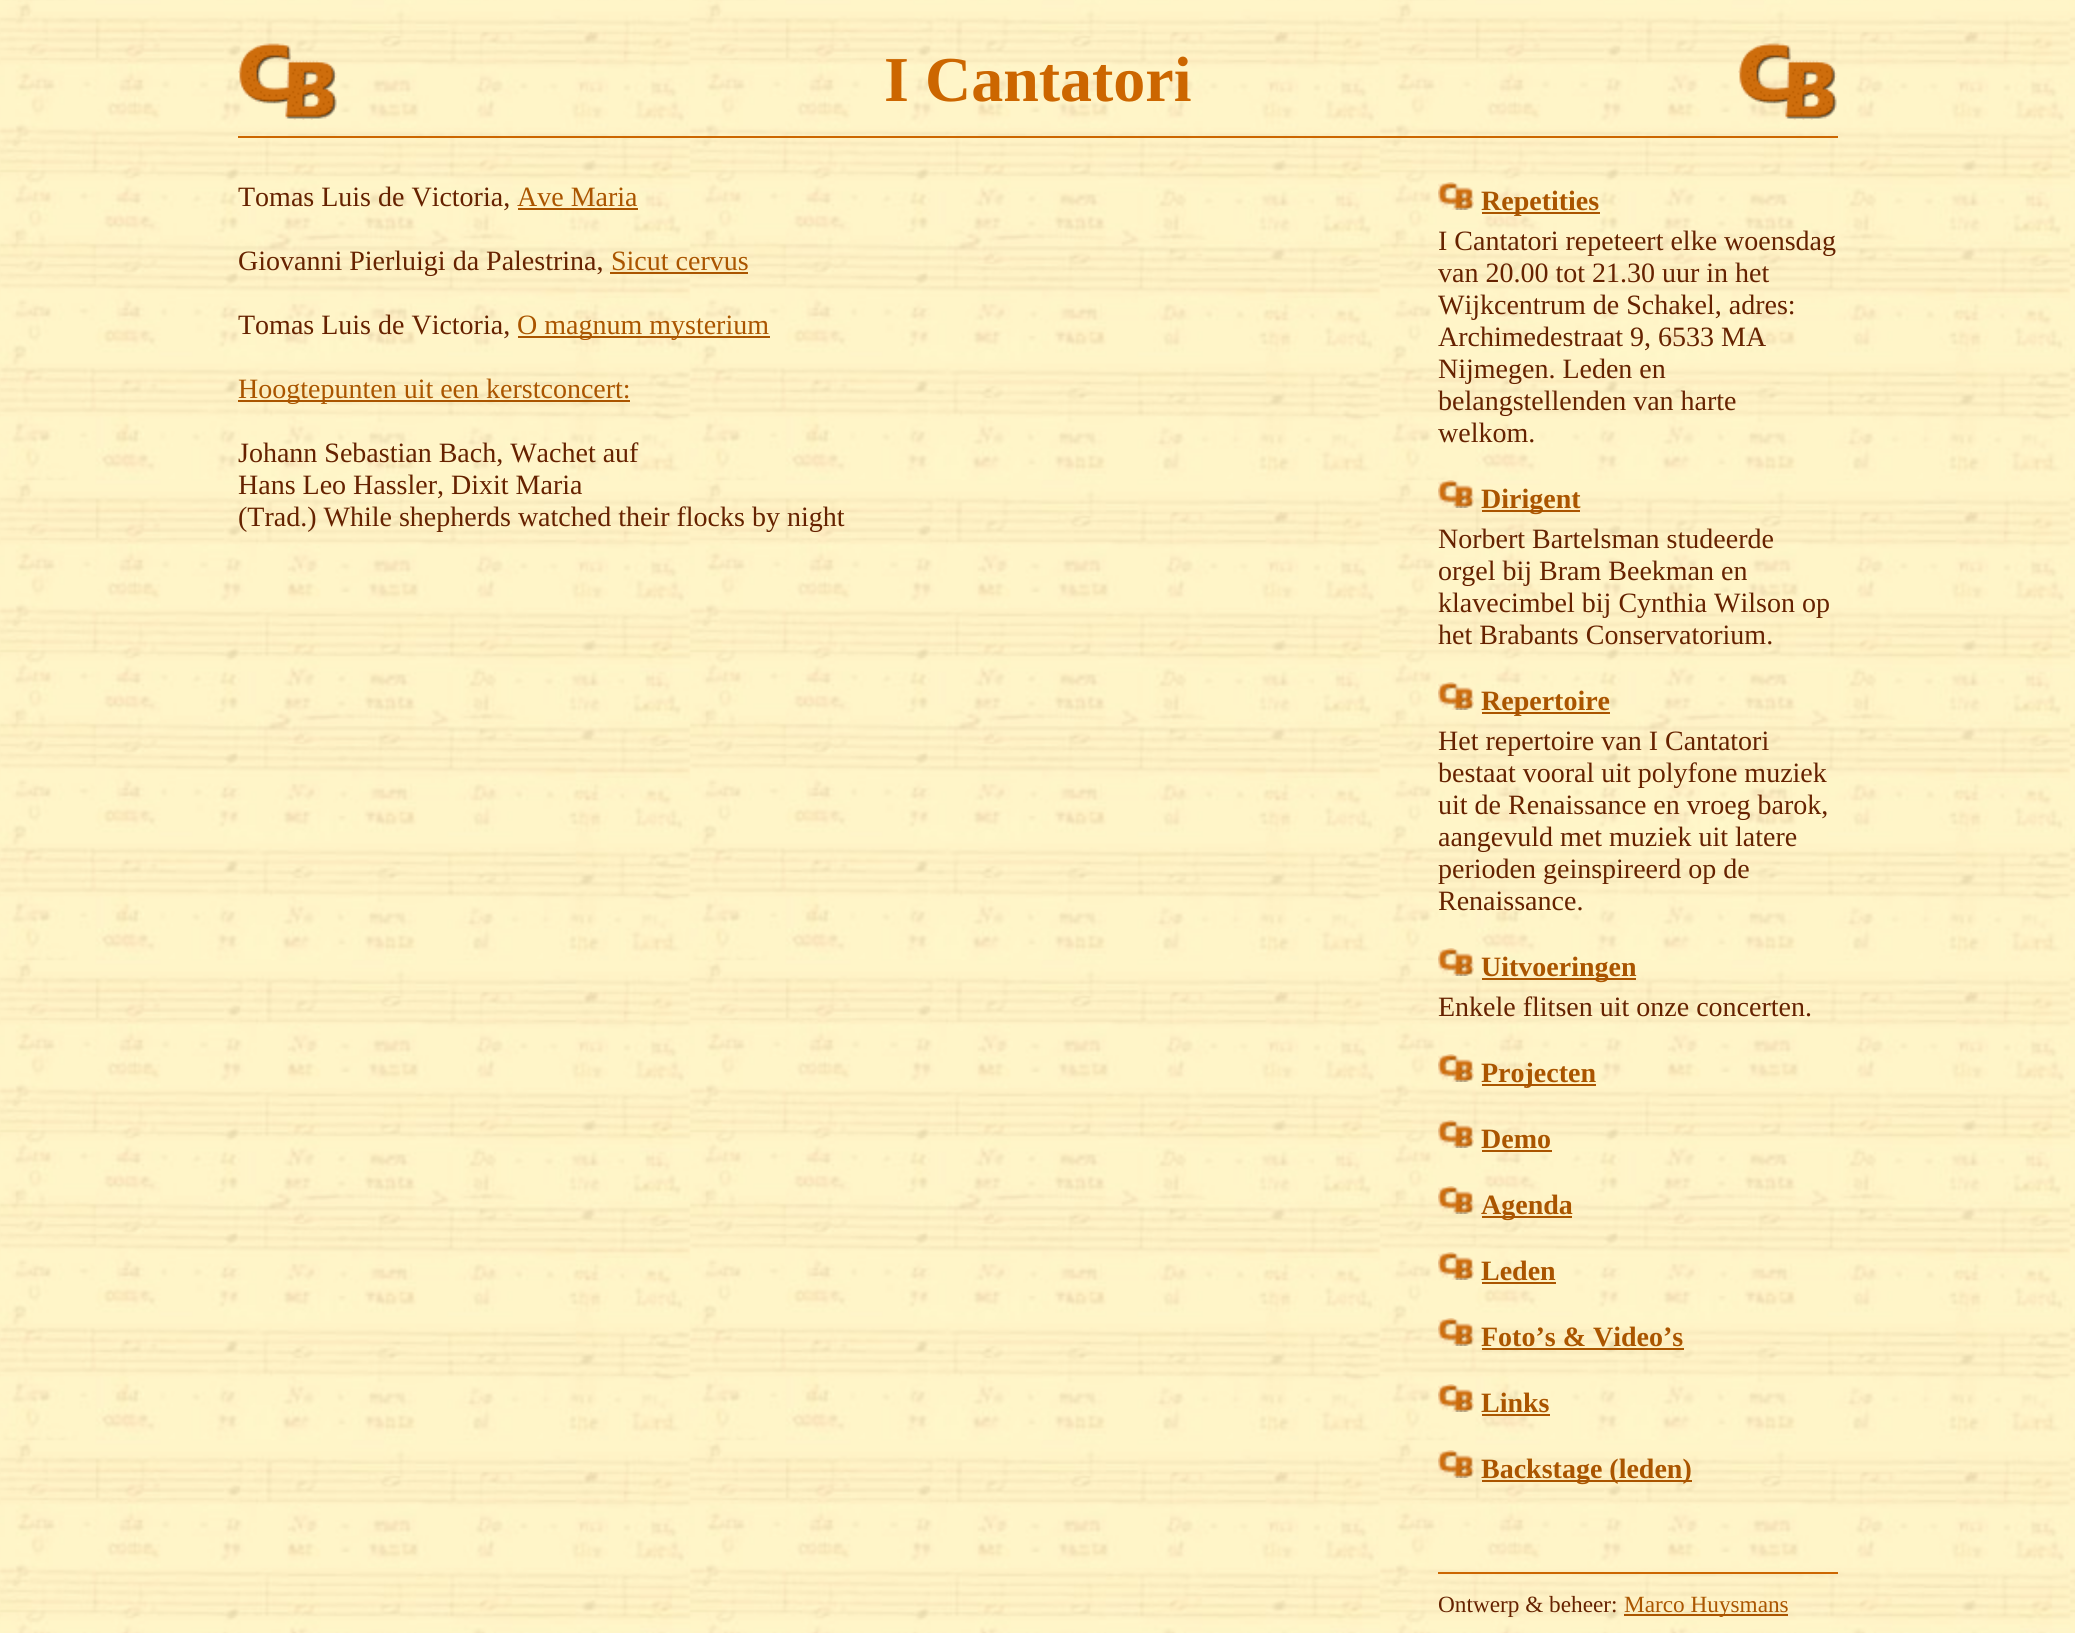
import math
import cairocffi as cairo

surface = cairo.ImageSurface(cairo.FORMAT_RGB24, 2075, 1633)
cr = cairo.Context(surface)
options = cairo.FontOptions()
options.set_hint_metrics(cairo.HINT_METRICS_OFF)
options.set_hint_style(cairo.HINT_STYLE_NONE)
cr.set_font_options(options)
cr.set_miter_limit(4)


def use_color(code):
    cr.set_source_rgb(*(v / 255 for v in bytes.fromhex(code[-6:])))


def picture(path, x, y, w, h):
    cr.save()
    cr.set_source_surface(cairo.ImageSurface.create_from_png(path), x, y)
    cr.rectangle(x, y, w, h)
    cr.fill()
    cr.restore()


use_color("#ffffff")
cr.paint()
picture("img1.png", 0, 0, 2075, 1633)
use_color("#cc6600")
cr.rectangle(238, 136, 1600, 2)
cr.fill()
picture("img2.png", 238, 43, 99, 77)
cr.select_font_face("Liberation Serif", cairo.FONT_SLANT_NORMAL, cairo.FONT_WEIGHT_BOLD)
cr.set_font_size(64)
cr.move_to(884, 101)
cr.show_text("I Cantatori")
picture("img3.png", 1738, 43, 99, 77)
cr.select_font_face("Liberation Serif")
cr.set_font_size(28)
use_color("#662200")
cr.move_to(238, 206)
cr.show_text("Tomas Luis de Victoria,")
use_color("#aa5500")
cr.move_to(517, 206)
cr.show_text("Ave Maria")
cr.rectangle(518, 208, 120, 2)
cr.fill()
use_color("#662200")
cr.move_to(238, 270)
cr.show_text("Giovanni Pierluigi da Palestrina,")
use_color("#aa5500")
cr.move_to(611, 270)
cr.show_text("Sicut cervus")
cr.rectangle(610, 272, 138, 2)
cr.fill()
use_color("#662200")
cr.move_to(238, 334)
cr.show_text("Tomas Luis de Victoria,")
use_color("#aa5500")
cr.rectangle(518, 336, 252, 2)
cr.fill()
cr.move_to(517, 334)
cr.show_text("O magnum mysterium")
cr.rectangle(238, 400, 392, 2)
cr.fill()
cr.move_to(238, 398)
cr.show_text("Hoogtepunten uit een kerstconcert:")
use_color("#662200")
cr.move_to(238, 462)
cr.show_text("Johann Sebastian Bach, Wachet auf")
cr.move_to(238, 494)
cr.show_text("Hans Leo Hassler, Dixit Maria")
cr.move_to(238, 526)
cr.show_text("(Trad.) While shepherds watched their flocks by night")
picture("img4.png", 1438, 182, 36, 28)
use_color("#aa5500")
cr.rectangle(1482, 212, 118, 2)
cr.fill()
cr.select_font_face("Liberation Serif", cairo.FONT_SLANT_NORMAL, cairo.FONT_WEIGHT_BOLD)
cr.move_to(1481, 210)
cr.show_text("Repetities")
cr.select_font_face("Liberation Serif")
use_color("#662200")
cr.move_to(1438, 250)
cr.show_text("I Cantatori repeteert elke woensdag")
cr.move_to(1438, 282)
cr.show_text("van 20.00 tot 21.30 uur in het")
cr.move_to(1438, 314)
cr.show_text("Wijkcentrum de Schakel, adres:")
cr.move_to(1438, 346)
cr.show_text("Archimedestraat 9, 6533 MA")
cr.move_to(1438, 378)
cr.show_text("Nijmegen. Leden en")
cr.move_to(1438, 410)
cr.show_text("belangstellenden van harte")
cr.move_to(1438, 442)
cr.show_text("welkom.")
picture("img5.png", 1438, 480, 36, 28)
use_color("#aa5500")
cr.rectangle(1482, 510, 98, 2)
cr.fill()
cr.select_font_face("Liberation Serif", cairo.FONT_SLANT_NORMAL, cairo.FONT_WEIGHT_BOLD)
cr.move_to(1481, 508)
cr.show_text("Dirigent")
cr.select_font_face("Liberation Serif")
use_color("#662200")
cr.move_to(1438, 548)
cr.show_text("Norbert Bartelsman studeerde")
cr.move_to(1438, 580)
cr.show_text("orgel bij Bram Beekman en")
cr.move_to(1438, 612)
cr.show_text("klavecimbel bij Cynthia Wilson op")
cr.move_to(1438, 644)
cr.show_text("het Brabants Conservatorium.")
picture("img6.png", 1438, 682, 36, 28)
use_color("#aa5500")
cr.rectangle(1482, 712, 128, 2)
cr.fill()
cr.select_font_face("Liberation Serif", cairo.FONT_SLANT_NORMAL, cairo.FONT_WEIGHT_BOLD)
cr.move_to(1481, 710)
cr.show_text("Repertoire")
cr.select_font_face("Liberation Serif")
use_color("#662200")
cr.move_to(1438, 750)
cr.show_text("Het repertoire van I Cantatori")
cr.move_to(1438, 782)
cr.show_text("bestaat vooral uit polyfone muziek")
cr.move_to(1438, 814)
cr.show_text("uit de Renaissance en vroeg barok,")
cr.move_to(1438, 846)
cr.show_text("aangevuld met muziek uit latere")
cr.move_to(1438, 878)
cr.show_text("perioden geinspireerd op de")
cr.move_to(1438, 910)
cr.show_text("Renaissance.")
picture("img7.png", 1438, 948, 36, 28)
use_color("#aa5500")
cr.rectangle(1482, 978, 154, 2)
cr.fill()
cr.select_font_face("Liberation Serif", cairo.FONT_SLANT_NORMAL, cairo.FONT_WEIGHT_BOLD)
cr.move_to(1481, 976)
cr.show_text("Uitvoeringen")
cr.select_font_face("Liberation Serif")
use_color("#662200")
cr.move_to(1438, 1016)
cr.show_text("Enkele flitsen uit onze concerten.")
picture("img8.png", 1438, 1054, 36, 28)
use_color("#aa5500")
cr.rectangle(1482, 1084, 114, 2)
cr.fill()
cr.select_font_face("Liberation Serif", cairo.FONT_SLANT_NORMAL, cairo.FONT_WEIGHT_BOLD)
cr.move_to(1481, 1082)
cr.show_text("Projecten")
picture("img9.png", 1438, 1120, 36, 28)
cr.move_to(1481, 1148)
cr.show_text("Demo")
cr.rectangle(1482, 1150, 70, 2)
cr.fill()
picture("img10.png", 1438, 1186, 36, 28)
cr.rectangle(1482, 1216, 90, 2)
cr.fill()
cr.move_to(1481, 1214)
cr.show_text("Agenda")
picture("img11.png", 1438, 1252, 36, 28)
cr.move_to(1481, 1280)
cr.show_text("Leden")
cr.rectangle(1482, 1282, 74, 2)
cr.fill()
picture("img12.png", 1438, 1318, 36, 28)
cr.move_to(1481, 1346)
cr.show_text("Foto’s & Video’s")
cr.rectangle(1482, 1348, 202, 2)
cr.fill()
picture("img13.png", 1438, 1384, 36, 28)
cr.move_to(1481, 1412)
cr.show_text("Links")
cr.rectangle(1482, 1414, 68, 2)
cr.fill()
picture("img14.png", 1438, 1450, 36, 28)
cr.rectangle(1482, 1480, 210, 2)
cr.fill()
cr.move_to(1481, 1478)
cr.show_text("Backstage (leden)")
use_color("#cc6600")
cr.rectangle(1438, 1572, 400, 2)
cr.fill()
cr.select_font_face("Liberation Serif")
cr.set_font_size(23.25)
use_color("#662200")
cr.move_to(1438, 1612)
cr.show_text("Ontwerp & beheer:")
use_color("#aa5500")
cr.rectangle(1624, 1614, 164, 2)
cr.fill()
cr.move_to(1624, 1612)
cr.show_text("Marco Huysmans")
surface.write_to_png("result.png")
